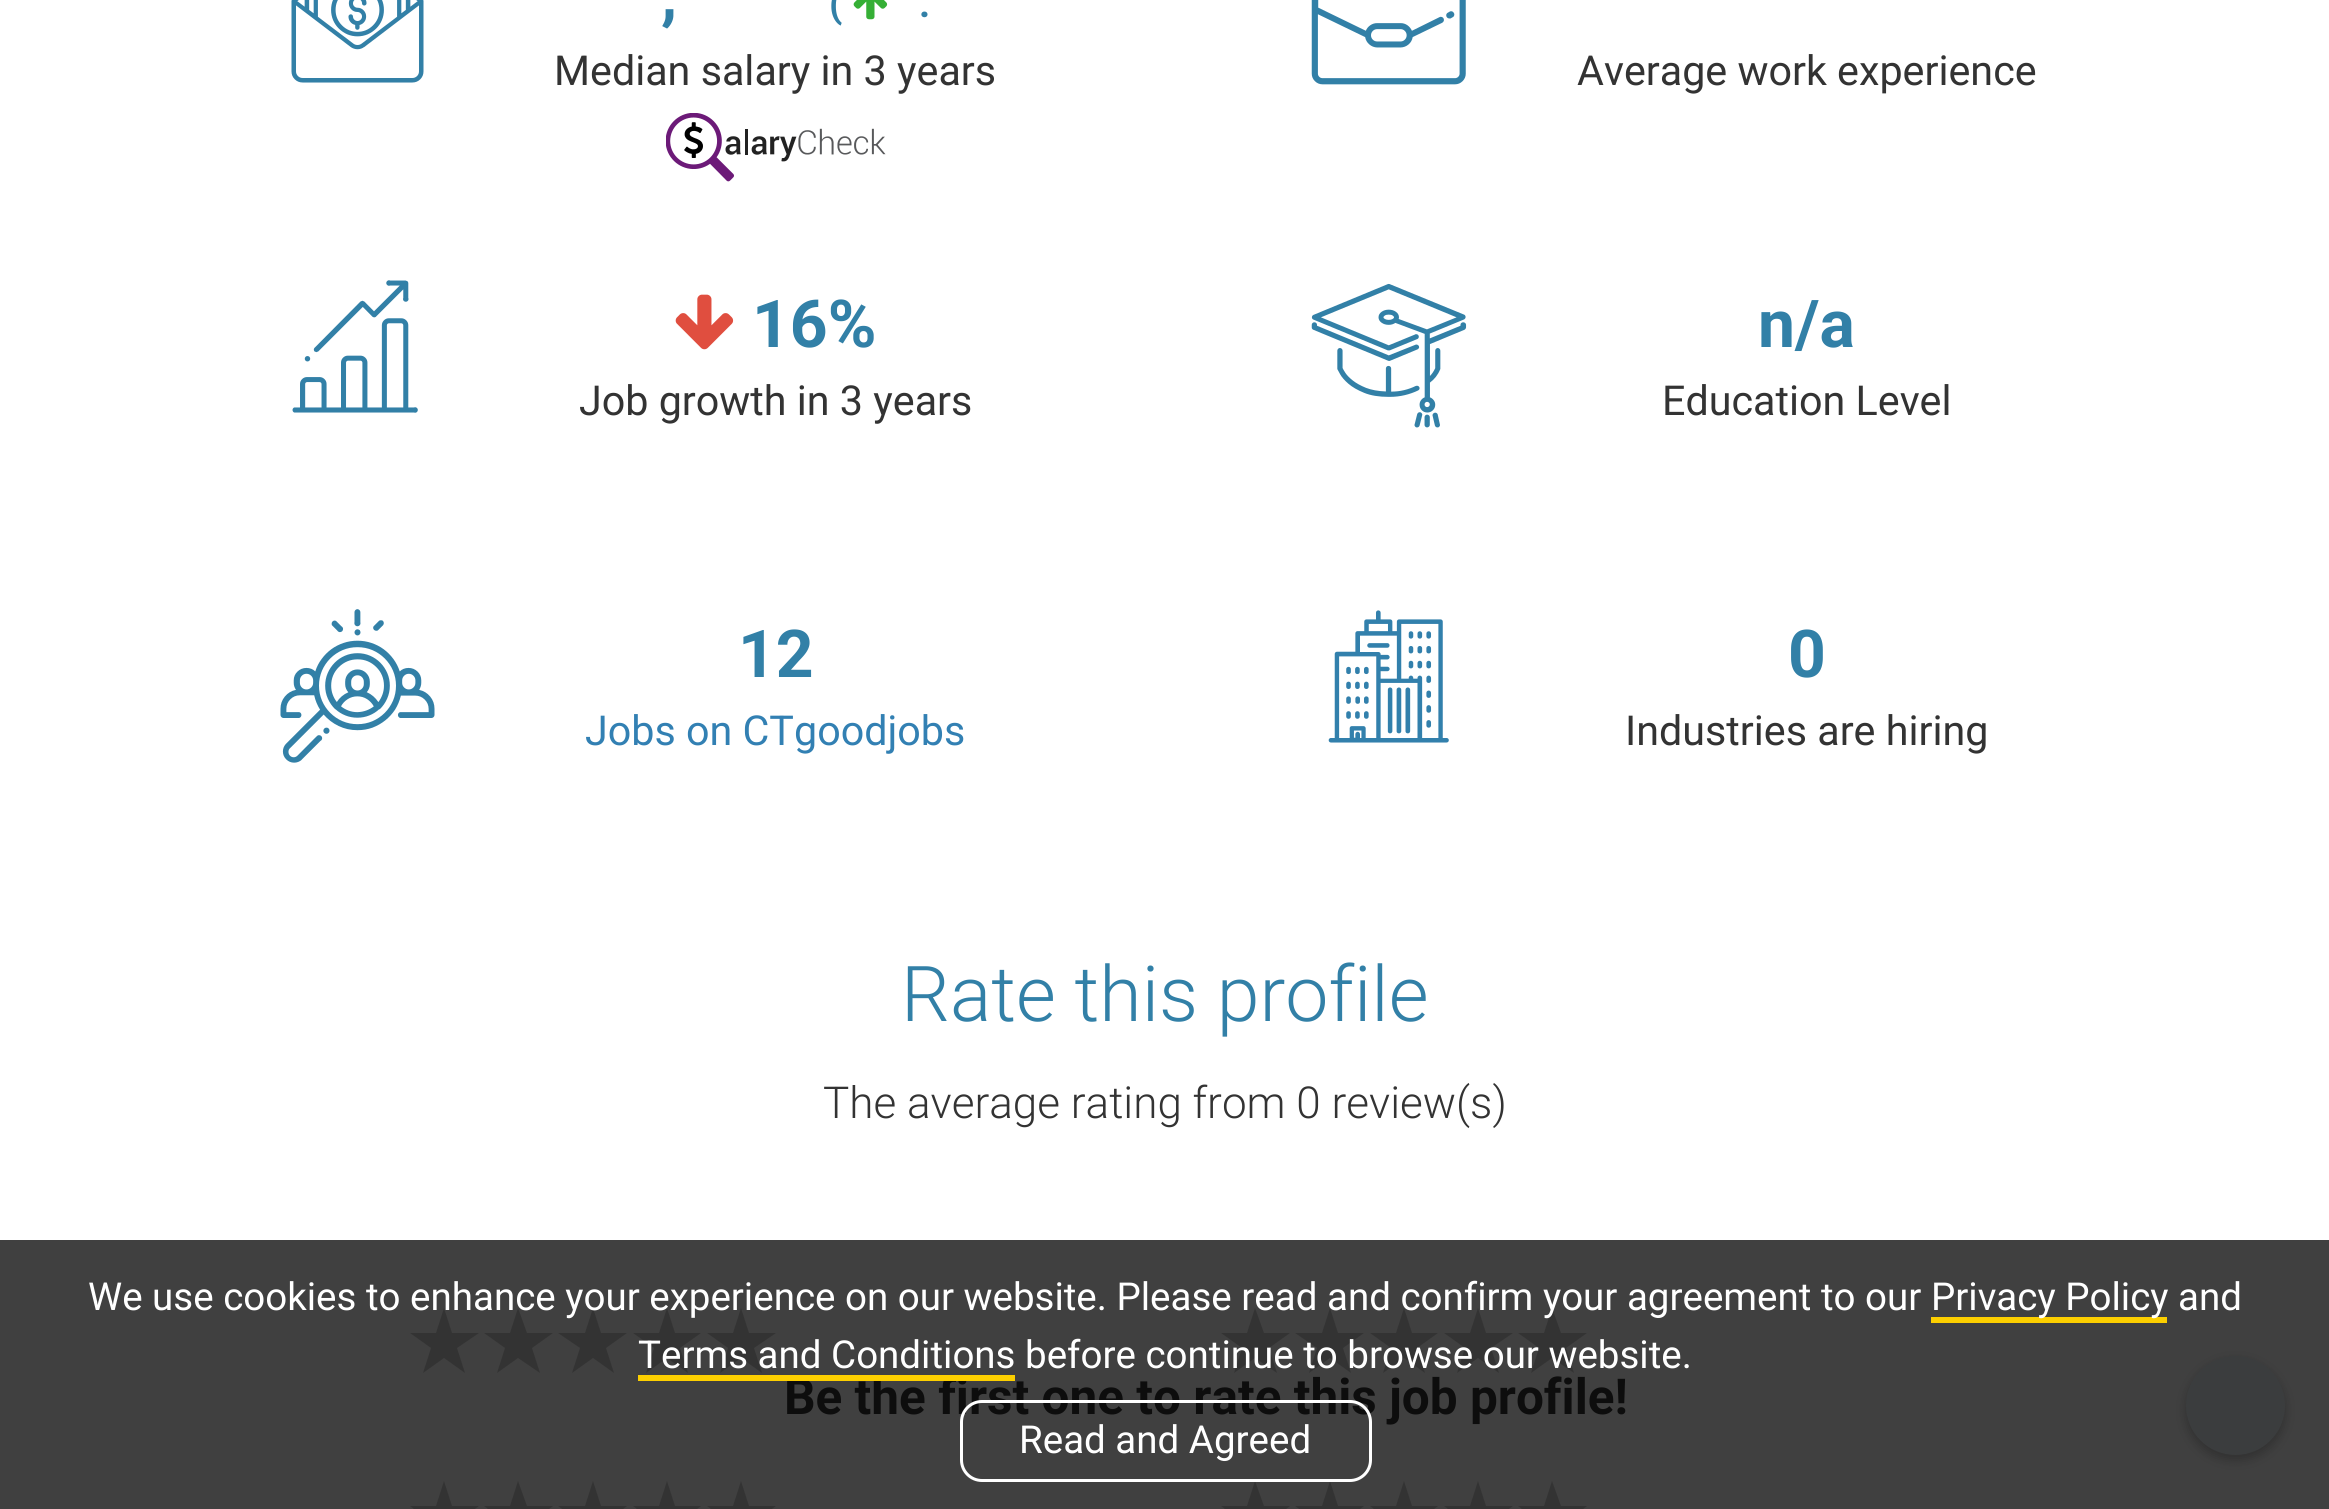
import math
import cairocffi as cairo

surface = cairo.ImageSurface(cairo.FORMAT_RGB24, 2329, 1509)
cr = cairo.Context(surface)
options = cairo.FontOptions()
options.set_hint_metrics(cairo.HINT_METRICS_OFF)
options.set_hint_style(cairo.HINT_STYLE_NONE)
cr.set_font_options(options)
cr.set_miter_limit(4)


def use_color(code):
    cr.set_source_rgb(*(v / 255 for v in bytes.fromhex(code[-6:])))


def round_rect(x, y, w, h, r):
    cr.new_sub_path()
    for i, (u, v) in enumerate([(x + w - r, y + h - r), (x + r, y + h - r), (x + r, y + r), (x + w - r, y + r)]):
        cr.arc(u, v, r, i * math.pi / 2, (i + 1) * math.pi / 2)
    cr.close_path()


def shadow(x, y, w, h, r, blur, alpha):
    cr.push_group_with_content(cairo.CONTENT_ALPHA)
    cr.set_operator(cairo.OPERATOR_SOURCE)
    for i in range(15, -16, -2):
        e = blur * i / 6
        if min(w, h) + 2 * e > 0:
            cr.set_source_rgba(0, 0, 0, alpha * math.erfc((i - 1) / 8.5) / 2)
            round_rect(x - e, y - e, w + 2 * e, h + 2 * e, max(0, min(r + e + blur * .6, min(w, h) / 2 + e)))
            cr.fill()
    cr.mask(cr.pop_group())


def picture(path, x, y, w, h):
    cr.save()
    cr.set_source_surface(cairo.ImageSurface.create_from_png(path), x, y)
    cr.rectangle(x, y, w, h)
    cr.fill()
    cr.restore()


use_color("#ffffff")
cr.paint()
use_color("#404040")
cr.rectangle(0, 1240, 2329, 269)
cr.fill()
picture("img1.png", 291, 0, 133, 83)
cr.select_font_face("Roboto", cairo.FONT_SLANT_NORMAL, cairo.FONT_WEIGHT_BOLD)
cr.set_font_size(66)
use_color("#3280a7")
cr.move_to(661, 17)
cr.show_text(",")
cr.set_font_size(38.5)
cr.move_to(829, 17)
cr.show_text("(")
picture("img2.png", 853, 0, 35, 20)
cr.move_to(919, 17)
cr.show_text(".")
cr.select_font_face("Roboto")
cr.set_font_size(41.25)
use_color("#333333")
cr.move_to(554, 85)
cr.show_text("Median salary in 3 years")
picture("img3.png", 666, 113, 220, 69)
picture("img4.png", 1311, 0, 155, 85)
cr.move_to(1577, 85)
cr.show_text("Average work experience")
picture("img5.png", 292, 280, 126, 133)
picture("img6.png", 675, 294, 59, 56)
cr.select_font_face("Roboto", cairo.FONT_SLANT_NORMAL, cairo.FONT_WEIGHT_BOLD)
cr.set_font_size(66)
use_color("#3280a7")
cr.move_to(752, 347)
cr.show_text("16%")
cr.select_font_face("Roboto")
cr.set_font_size(41.25)
use_color("#333333")
cr.move_to(579, 415)
cr.show_text("Job growth in 3 years")
picture("img7.png", 1311, 283, 156, 145)
cr.select_font_face("Roboto", cairo.FONT_SLANT_NORMAL, cairo.FONT_WEIGHT_BOLD)
cr.set_font_size(66)
use_color("#3280a7")
cr.move_to(1758, 347)
cr.show_text("n/a")
cr.select_font_face("Roboto")
cr.set_font_size(41.25)
use_color("#333333")
cr.move_to(1662, 415)
cr.show_text("Education Level")
picture("img8.png", 280, 609, 155, 154)
cr.select_font_face("Roboto", cairo.FONT_SLANT_NORMAL, cairo.FONT_WEIGHT_BOLD)
cr.set_font_size(66)
use_color("#3280a7")
cr.move_to(738, 677)
cr.show_text("12")
cr.select_font_face("Roboto")
cr.set_font_size(41.25)
use_color("#3280b3")
cr.move_to(585, 745)
cr.show_text("Jobs on CTgoodjobs")
picture("img9.png", 1328, 610, 121, 133)
cr.select_font_face("Roboto", cairo.FONT_SLANT_NORMAL, cairo.FONT_WEIGHT_BOLD)
cr.set_font_size(66)
use_color("#3280a7")
cr.move_to(1788, 677)
cr.show_text("0")
cr.select_font_face("Roboto")
cr.set_font_size(41.25)
use_color("#333333")
cr.move_to(1625, 745)
cr.show_text("Industries are hiring")
cr.select_font_face("Roboto Light")
cr.set_font_size(77)
use_color("#3280a7")
cr.move_to(901, 1021)
cr.show_text("Rate this profile")
cr.set_font_size(44)
use_color("#333333")
cr.move_to(823, 1118)
cr.show_text("The average rating from 0 review(s)")
cr.new_path()
cr.move_to(444, 1308)
cr.line_to(452, 1333)
cr.line_to(479, 1333)
cr.line_to(457, 1348)
cr.line_to(465, 1373)
cr.line_to(444, 1358)
cr.line_to(423, 1373)
cr.line_to(431, 1348)
cr.line_to(410, 1333)
cr.line_to(436, 1333)
cr.close_path()
cr.fill()
cr.new_path()
cr.move_to(518, 1308)
cr.line_to(527, 1333)
cr.line_to(553, 1333)
cr.line_to(532, 1348)
cr.line_to(540, 1373)
cr.line_to(518, 1358)
cr.line_to(497, 1373)
cr.line_to(505, 1348)
cr.line_to(484, 1333)
cr.line_to(510, 1333)
cr.close_path()
cr.fill()
cr.new_path()
cr.move_to(593, 1308)
cr.line_to(601, 1333)
cr.line_to(627, 1333)
cr.line_to(606, 1348)
cr.line_to(614, 1373)
cr.line_to(593, 1358)
cr.line_to(572, 1373)
cr.line_to(580, 1348)
cr.line_to(558, 1333)
cr.line_to(585, 1333)
cr.close_path()
cr.fill()
cr.new_path()
cr.move_to(667, 1308)
cr.line_to(675, 1333)
cr.line_to(701, 1333)
cr.line_to(680, 1348)
cr.line_to(688, 1373)
cr.line_to(667, 1358)
cr.line_to(646, 1373)
cr.line_to(654, 1348)
cr.line_to(633, 1333)
cr.line_to(659, 1333)
cr.close_path()
cr.fill()
cr.new_path()
cr.move_to(741, 1308)
cr.line_to(749, 1333)
cr.line_to(776, 1333)
cr.line_to(754, 1348)
cr.line_to(762, 1373)
cr.line_to(741, 1358)
cr.line_to(720, 1373)
cr.line_to(728, 1348)
cr.line_to(707, 1333)
cr.line_to(733, 1333)
cr.close_path()
cr.fill()
cr.new_path()
cr.move_to(1255, 1308)
cr.line_to(1264, 1333)
cr.line_to(1290, 1333)
cr.line_to(1269, 1348)
cr.line_to(1277, 1373)
cr.line_to(1255, 1358)
cr.line_to(1234, 1373)
cr.line_to(1242, 1348)
cr.line_to(1221, 1333)
cr.line_to(1247, 1333)
cr.close_path()
cr.fill()
cr.new_path()
cr.move_to(1330, 1308)
cr.line_to(1338, 1333)
cr.line_to(1364, 1333)
cr.line_to(1343, 1348)
cr.line_to(1351, 1373)
cr.line_to(1330, 1358)
cr.line_to(1309, 1373)
cr.line_to(1317, 1348)
cr.line_to(1295, 1333)
cr.line_to(1322, 1333)
cr.close_path()
cr.fill()
cr.new_path()
cr.move_to(1404, 1308)
cr.line_to(1412, 1333)
cr.line_to(1438, 1333)
cr.line_to(1417, 1348)
cr.line_to(1425, 1373)
cr.line_to(1404, 1358)
cr.line_to(1383, 1373)
cr.line_to(1391, 1348)
cr.line_to(1370, 1333)
cr.line_to(1396, 1333)
cr.close_path()
cr.fill()
cr.new_path()
cr.move_to(1478, 1308)
cr.line_to(1486, 1333)
cr.line_to(1513, 1333)
cr.line_to(1491, 1348)
cr.line_to(1499, 1373)
cr.line_to(1478, 1358)
cr.line_to(1457, 1373)
cr.line_to(1465, 1348)
cr.line_to(1444, 1333)
cr.line_to(1470, 1333)
cr.close_path()
cr.fill()
cr.new_path()
cr.move_to(1552, 1308)
cr.line_to(1561, 1333)
cr.line_to(1587, 1333)
cr.line_to(1566, 1348)
cr.line_to(1574, 1373)
cr.line_to(1552, 1358)
cr.line_to(1531, 1373)
cr.line_to(1539, 1348)
cr.line_to(1518, 1333)
cr.line_to(1544, 1333)
cr.close_path()
cr.fill()
cr.new_path()
cr.move_to(444, 1481)
cr.line_to(452, 1506)
cr.line_to(479, 1506)
cr.line_to(457, 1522)
cr.line_to(465, 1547)
cr.line_to(444, 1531)
cr.line_to(423, 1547)
cr.line_to(431, 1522)
cr.line_to(410, 1506)
cr.line_to(436, 1506)
cr.close_path()
cr.fill()
cr.new_path()
cr.move_to(518, 1481)
cr.line_to(527, 1506)
cr.line_to(553, 1506)
cr.line_to(532, 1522)
cr.line_to(540, 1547)
cr.line_to(518, 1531)
cr.line_to(497, 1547)
cr.line_to(505, 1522)
cr.line_to(484, 1506)
cr.line_to(510, 1506)
cr.close_path()
cr.fill()
cr.new_path()
cr.move_to(593, 1481)
cr.line_to(601, 1506)
cr.line_to(627, 1506)
cr.line_to(606, 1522)
cr.line_to(614, 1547)
cr.line_to(593, 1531)
cr.line_to(572, 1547)
cr.line_to(580, 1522)
cr.line_to(558, 1506)
cr.line_to(585, 1506)
cr.close_path()
cr.fill()
cr.new_path()
cr.move_to(667, 1481)
cr.line_to(675, 1506)
cr.line_to(701, 1506)
cr.line_to(680, 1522)
cr.line_to(688, 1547)
cr.line_to(667, 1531)
cr.line_to(646, 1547)
cr.line_to(654, 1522)
cr.line_to(633, 1506)
cr.line_to(659, 1506)
cr.close_path()
cr.fill()
cr.new_path()
cr.move_to(741, 1481)
cr.line_to(749, 1506)
cr.line_to(776, 1506)
cr.line_to(754, 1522)
cr.line_to(762, 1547)
cr.line_to(741, 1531)
cr.line_to(720, 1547)
cr.line_to(728, 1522)
cr.line_to(707, 1506)
cr.line_to(733, 1506)
cr.close_path()
cr.fill()
cr.new_path()
cr.move_to(1255, 1481)
cr.line_to(1264, 1506)
cr.line_to(1290, 1506)
cr.line_to(1269, 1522)
cr.line_to(1277, 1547)
cr.line_to(1255, 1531)
cr.line_to(1234, 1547)
cr.line_to(1242, 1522)
cr.line_to(1221, 1506)
cr.line_to(1247, 1506)
cr.close_path()
cr.fill()
cr.new_path()
cr.move_to(1330, 1481)
cr.line_to(1338, 1506)
cr.line_to(1364, 1506)
cr.line_to(1343, 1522)
cr.line_to(1351, 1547)
cr.line_to(1330, 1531)
cr.line_to(1309, 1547)
cr.line_to(1317, 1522)
cr.line_to(1295, 1506)
cr.line_to(1322, 1506)
cr.close_path()
cr.fill()
cr.new_path()
cr.move_to(1404, 1481)
cr.line_to(1412, 1506)
cr.line_to(1438, 1506)
cr.line_to(1417, 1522)
cr.line_to(1425, 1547)
cr.line_to(1404, 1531)
cr.line_to(1383, 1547)
cr.line_to(1391, 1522)
cr.line_to(1370, 1506)
cr.line_to(1396, 1506)
cr.close_path()
cr.fill()
cr.new_path()
cr.move_to(1478, 1481)
cr.line_to(1486, 1506)
cr.line_to(1513, 1506)
cr.line_to(1491, 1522)
cr.line_to(1499, 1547)
cr.line_to(1478, 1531)
cr.line_to(1457, 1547)
cr.line_to(1465, 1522)
cr.line_to(1444, 1506)
cr.line_to(1470, 1506)
cr.close_path()
cr.fill()
cr.new_path()
cr.move_to(1552, 1481)
cr.line_to(1561, 1506)
cr.line_to(1587, 1506)
cr.line_to(1566, 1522)
cr.line_to(1574, 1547)
cr.line_to(1552, 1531)
cr.line_to(1531, 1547)
cr.line_to(1539, 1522)
cr.line_to(1518, 1506)
cr.line_to(1544, 1506)
cr.close_path()
cr.fill()
cr.select_font_face("Roboto", cairo.FONT_SLANT_NORMAL, cairo.FONT_WEIGHT_BOLD)
cr.set_font_size(49.5)
use_color("#0d0d0d")
cr.move_to(784, 1414)
cr.show_text("Be the first one to rate this job profile!")
cr.select_font_face("Roboto")
cr.set_font_size(38.5)
use_color("#ffffff")
cr.move_to(88, 1310)
cr.show_text("We use cookies to enhance your experience on our website. Please read and confirm your agreement to our")
use_color("#fccf00")
cr.rectangle(1931, 1317, 236, 6)
cr.fill()
use_color("#ffffff")
cr.move_to(1931, 1310)
cr.show_text("Privacy Policy and")
cr.move_to(638, 1368)
cr.show_text("Terms and Conditions before continue to browse our website.")
use_color("#fccf00")
cr.rectangle(638, 1375, 377, 6)
cr.fill()
round_rect(961.5, 1401.5, 409, 79, 20.5)
use_color("#ffffff")
cr.set_line_width(3)
cr.stroke()
cr.move_to(1019, 1453)
cr.show_text("Read and Agreed")
use_color("#000000")
shadow(2186, 1361, 99, 99, 49.5, 5.5, 0.25)
use_color("#3b3d3e")
cr.arc(2235.5, 1405.5, 49.5, 0, 2 * math.pi)
cr.fill()
surface.write_to_png("result.png")
